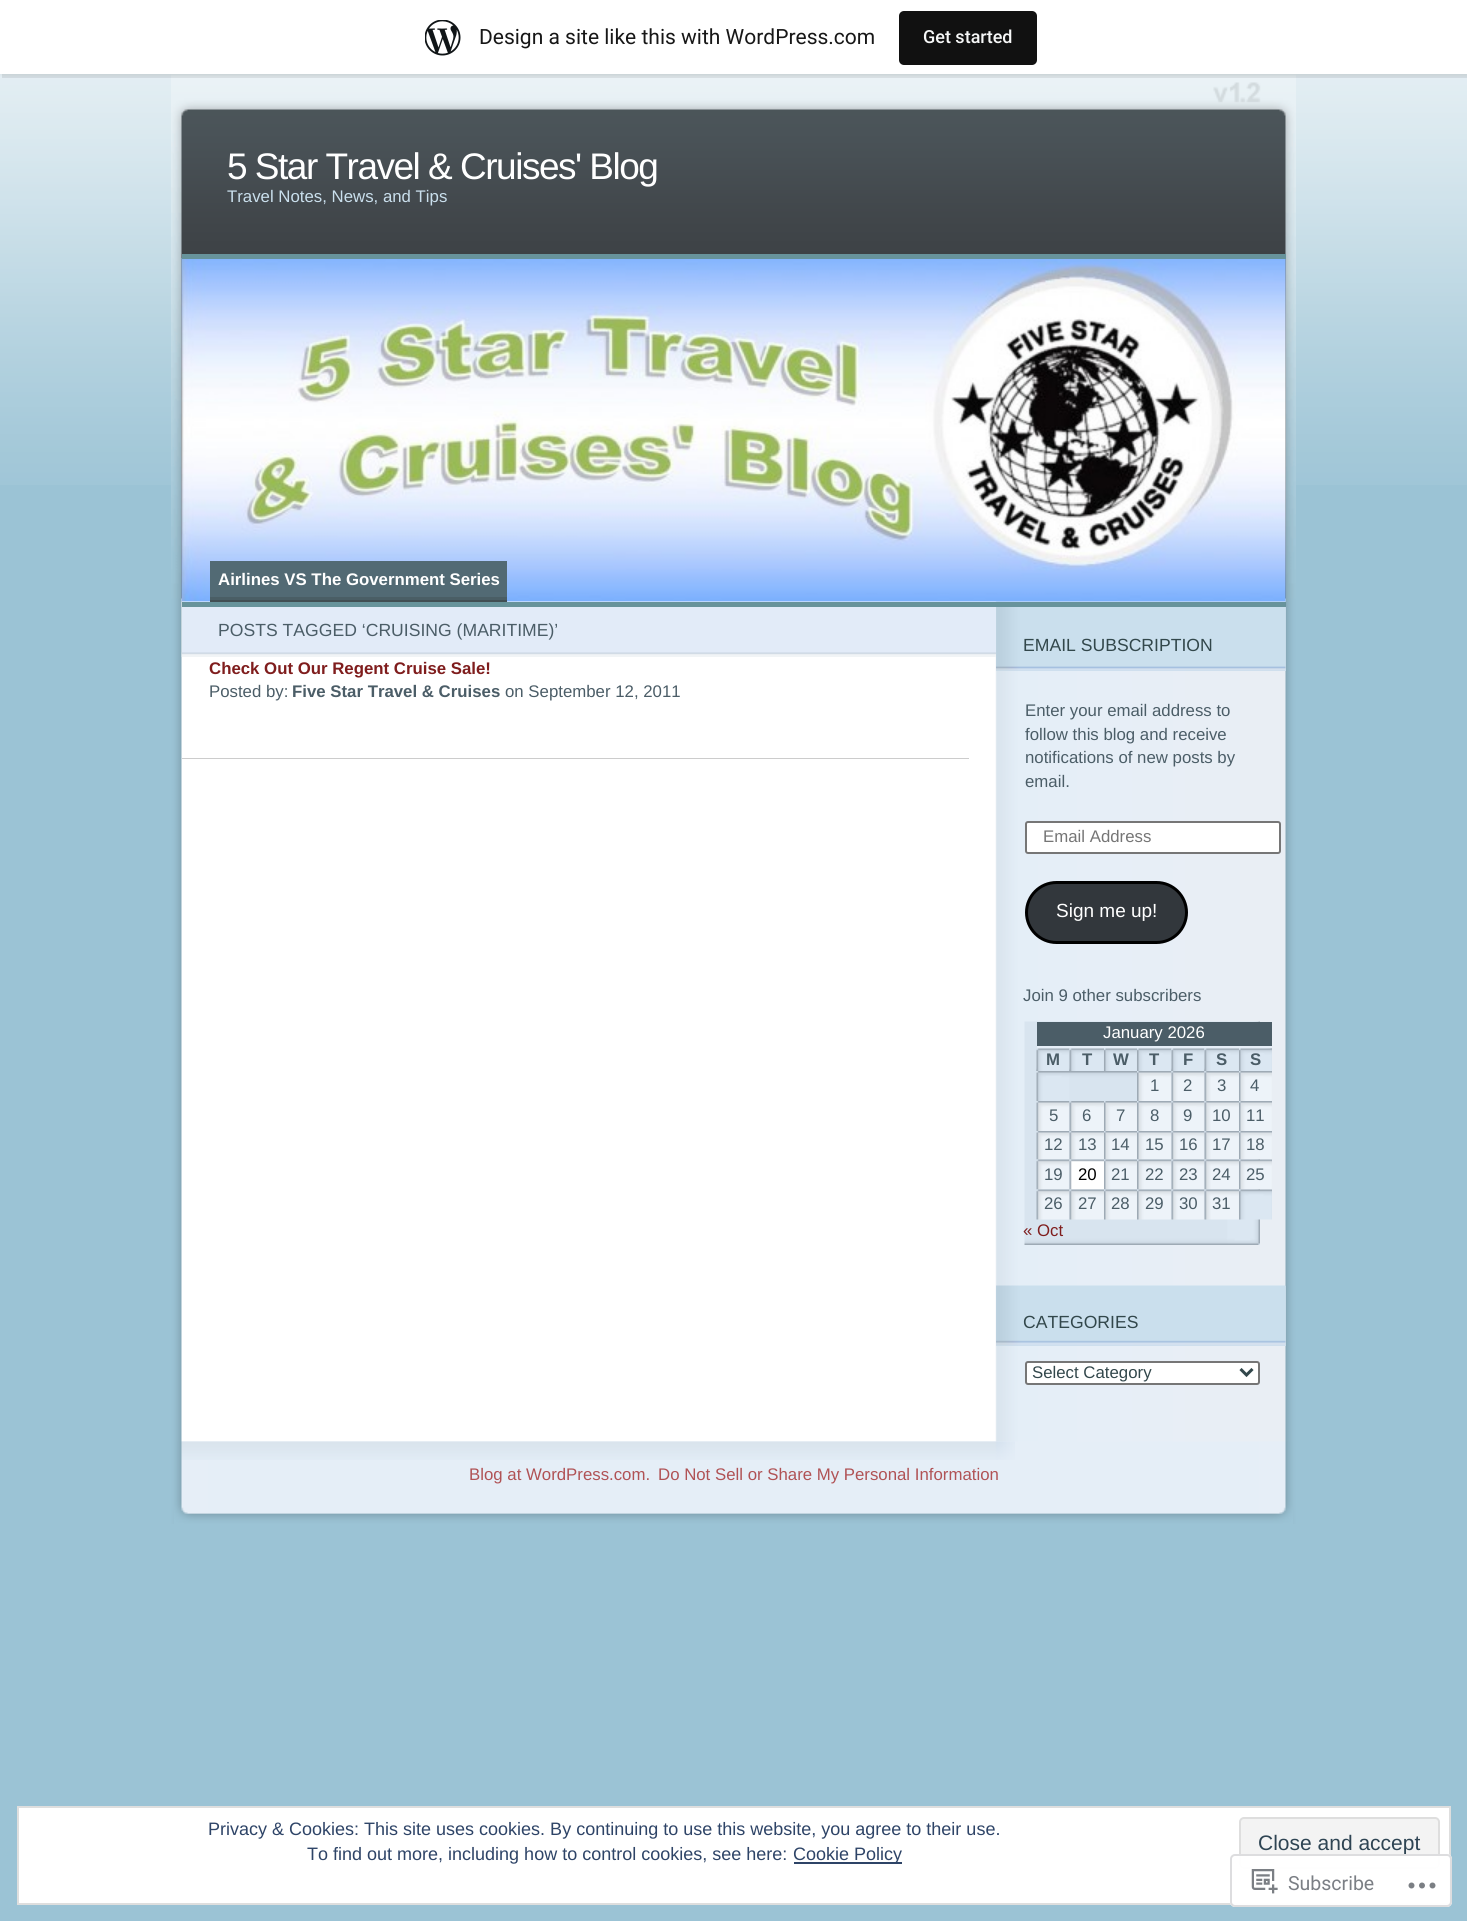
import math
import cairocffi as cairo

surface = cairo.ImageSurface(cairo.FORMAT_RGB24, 1467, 1921)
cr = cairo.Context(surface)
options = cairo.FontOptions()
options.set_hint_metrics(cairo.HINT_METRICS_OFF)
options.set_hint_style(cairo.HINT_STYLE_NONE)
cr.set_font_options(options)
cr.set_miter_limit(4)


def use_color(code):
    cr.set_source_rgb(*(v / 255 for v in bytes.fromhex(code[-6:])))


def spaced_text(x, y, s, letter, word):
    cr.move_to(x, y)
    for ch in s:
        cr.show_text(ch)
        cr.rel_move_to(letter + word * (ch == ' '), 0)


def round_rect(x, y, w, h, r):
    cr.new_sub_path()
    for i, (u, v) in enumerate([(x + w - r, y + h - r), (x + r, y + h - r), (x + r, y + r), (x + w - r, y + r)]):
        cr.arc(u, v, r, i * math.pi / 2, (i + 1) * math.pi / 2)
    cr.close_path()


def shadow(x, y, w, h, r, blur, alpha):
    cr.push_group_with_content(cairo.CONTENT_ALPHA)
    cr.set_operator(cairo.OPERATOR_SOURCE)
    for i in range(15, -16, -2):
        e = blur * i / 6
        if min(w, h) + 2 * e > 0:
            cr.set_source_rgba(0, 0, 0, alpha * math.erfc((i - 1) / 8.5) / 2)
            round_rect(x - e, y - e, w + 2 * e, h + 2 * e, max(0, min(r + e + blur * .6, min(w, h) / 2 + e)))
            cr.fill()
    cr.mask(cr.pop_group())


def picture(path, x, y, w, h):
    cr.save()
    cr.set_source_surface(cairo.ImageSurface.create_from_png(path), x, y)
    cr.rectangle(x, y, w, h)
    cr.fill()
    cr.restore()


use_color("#9bc3d5")
cr.paint()
picture("img1.png", 0, 74, 1467, 411)
picture("img3.png", 171, 598, 1125, 926)
picture("img4.png", 171, 74, 1125, 525)
use_color("#000000")
shadow(0, 2, 1467, 73, 0, 1.5, 0.05)
cr.set_source_rgba(0, 0, 0, 0.08)
cr.new_path()
cr.move_to(2, 74)
cr.line_to(2, 78)
cr.line_to(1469, 78)
cr.line_to(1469, 5)
cr.line_to(1467, 5)
cr.line_to(1467, 74)
cr.close_path()
cr.fill()
use_color("#ffffff")
cr.rectangle(0, 0, 1467, 74)
cr.fill()
picture("img2.png", 425, 20, 36, 36)
cr.select_font_face("Roboto")
cr.set_font_size(21)
use_color("#171717")
cr.move_to(479, 44)
cr.show_text("Design a site like this with WordPress.com")
use_color("#111111")
round_rect(899, 11, 138, 54, 5)
cr.fill()
cr.select_font_face("Roboto Medium")
cr.set_font_size(18)
use_color("#f6f7f7")
cr.move_to(923, 43)
cr.show_text("Get started")
cr.select_font_face("Liberation Sans")
cr.set_font_size(37)
use_color("#ffffff")
spaced_text(227, 179, "5 Star Travel & Cruises' Blog", -1.5, 0)
cr.set_font_size(16.8)
use_color("#cadfed")
cr.move_to(227, 202)
cr.show_text("Travel Notes, News, and Tips")
picture("img5.png", 181, 258, 1105, 344)
use_color("#67939b")
cr.rectangle(182, 254, 1104, 5)
cr.fill()
cr.rectangle(182, 602, 1104, 5)
cr.fill()
use_color("#414e53")
cr.rectangle(210, 600, 297, 2)
cr.fill()
use_color("#526a74")
cr.rectangle(210, 561, 297, 36)
cr.fill()
use_color("#4a5e65")
cr.rectangle(210, 597, 297, 3)
cr.fill()
cr.select_font_face("Liberation Sans", cairo.FONT_SLANT_NORMAL, cairo.FONT_WEIGHT_BOLD)
use_color("#ffffff")
cr.move_to(218, 585)
cr.show_text("Airlines VS The Government Series")
use_color("#e2ebf8")
cr.rectangle(182, 607, 814, 46)
cr.fill()
picture("img6.png", 181, 652, 815, 5)
cr.select_font_face("Liberation Sans")
cr.set_font_size(17.6)
use_color("#4b5d67")
cr.move_to(218, 636)
cr.show_text("POSTS TAGGED ‘CRUISING (MARITIME)’")
use_color("#cccccc")
cr.rectangle(182, 758, 787, 1)
cr.fill()
cr.select_font_face("Liberation Sans", cairo.FONT_SLANT_NORMAL, cairo.FONT_WEIGHT_BOLD)
cr.set_font_size(16.8)
use_color("#7f1d1d")
cr.move_to(209, 674)
cr.show_text("Check Out Our Regent Cruise Sale!")
cr.select_font_face("Liberation Sans")
use_color("#4b5d67")
cr.move_to(209, 697)
cr.show_text("Posted by:")
cr.select_font_face("Liberation Sans", cairo.FONT_SLANT_NORMAL, cairo.FONT_WEIGHT_BOLD)
cr.move_to(292, 697)
cr.show_text("Five Star Travel & Cruises")
cr.select_font_face("Liberation Sans")
cr.move_to(505, 697)
cr.show_text("on September 12, 2011")
use_color("#cadfed")
cr.rectangle(996, 607, 290, 64)
cr.fill()
picture("img7.png", 996, 607, 290, 64)
cr.set_font_size(17.6)
use_color("#32474b")
cr.move_to(1023, 651)
cr.show_text("EMAIL SUBSCRIPTION")
cr.set_font_size(16.8)
use_color("#4b5d67")
cr.move_to(1025, 716)
cr.show_text("Enter your email address to")
cr.move_to(1025, 740)
cr.show_text("follow this blog and receive")
cr.move_to(1025, 763)
cr.show_text("notifications of new posts by")
cr.move_to(1025, 787)
cr.show_text("email.")
use_color("#ffffff")
round_rect(1026, 822, 254, 31, 2)
cr.fill_preserve()
use_color("#767676")
cr.stroke()
use_color("#757575")
cr.move_to(1043, 842)
cr.show_text("Email Address")
use_color("#32373c")
round_rect(1026.5, 882.5, 160, 60, 30)
cr.fill_preserve()
use_color("#000000")
cr.set_line_width(3)
cr.stroke()
cr.set_font_size(19)
use_color("#ffffff")
cr.move_to(1056, 917)
cr.show_text("Sign me up!")
cr.set_font_size(16.8)
use_color("#4b5d67")
cr.move_to(1023, 1001)
cr.show_text("Join 9 other subscribers")
picture("img8.png", 1024, 1021, 236, 224)
cr.rectangle(1037, 1022, 235, 24)
cr.fill()
use_color("#e6eef7")
cr.rectangle(1037, 1046, 235, 3)
cr.fill()
use_color("#ffffff")
cr.move_to(1103, 1038)
cr.show_text("January 2026")
picture("img9.png", 1036, 1048, 34, 23)
cr.select_font_face("Liberation Sans", cairo.FONT_SLANT_NORMAL, cairo.FONT_WEIGHT_BOLD)
use_color("#4b5d67")
cr.move_to(1046, 1065)
cr.show_text("M")
picture("img10.png", 1069, 1048, 35, 23)
cr.move_to(1082, 1065)
cr.show_text("T")
picture("img11.png", 1104, 1048, 33, 23)
cr.move_to(1113, 1065)
cr.show_text("W")
picture("img12.png", 1137, 1048, 35, 23)
cr.move_to(1149, 1065)
cr.show_text("T")
picture("img13.png", 1171, 1048, 34, 23)
cr.move_to(1183, 1065)
cr.show_text("F")
picture("img10.png", 1204, 1048, 35, 23)
cr.move_to(1216, 1065)
cr.show_text("S")
picture("img14.png", 1239, 1048, 33, 23)
cr.move_to(1250, 1065)
cr.show_text("S")
picture("img15.png", 1036, 1071, 101, 30)
picture("img16.png", 1137, 1071, 35, 30)
cr.select_font_face("Liberation Sans")
cr.move_to(1150, 1091)
cr.show_text("1")
picture("img17.png", 1171, 1071, 34, 30)
cr.move_to(1183, 1091)
cr.show_text("2")
picture("img18.png", 1204, 1071, 35, 30)
cr.move_to(1217, 1091)
cr.show_text("3")
picture("img19.png", 1239, 1071, 33, 30)
cr.move_to(1250, 1091)
cr.show_text("4")
picture("img20.png", 1036, 1101, 34, 30)
cr.move_to(1049, 1121)
cr.show_text("5")
picture("img18.png", 1069, 1101, 35, 30)
cr.move_to(1082, 1121)
cr.show_text("6")
picture("img21.png", 1104, 1101, 33, 30)
cr.move_to(1116, 1121)
cr.show_text("7")
picture("img16.png", 1137, 1101, 35, 30)
cr.move_to(1150, 1121)
cr.show_text("8")
picture("img17.png", 1171, 1101, 34, 30)
cr.move_to(1183, 1121)
cr.show_text("9")
picture("img18.png", 1204, 1101, 35, 30)
cr.move_to(1212, 1121)
cr.show_text("10")
picture("img19.png", 1239, 1101, 33, 30)
cr.move_to(1246, 1121)
cr.show_text("11")
picture("img22.png", 1036, 1131, 34, 29)
cr.move_to(1044, 1150)
cr.show_text("12")
picture("img23.png", 1069, 1131, 35, 29)
cr.move_to(1078, 1150)
cr.show_text("13")
picture("img24.png", 1104, 1131, 33, 29)
cr.move_to(1111, 1150)
cr.show_text("14")
picture("img25.png", 1137, 1131, 35, 29)
cr.move_to(1145, 1150)
cr.show_text("15")
picture("img26.png", 1171, 1131, 34, 29)
cr.move_to(1179, 1150)
cr.show_text("16")
picture("img27.png", 1204, 1131, 35, 29)
cr.move_to(1212, 1150)
cr.show_text("17")
picture("img28.png", 1239, 1131, 33, 29)
cr.move_to(1246, 1150)
cr.show_text("18")
picture("img29.png", 1036, 1159, 34, 31)
cr.move_to(1044, 1180)
cr.show_text("19")
picture("img30.png", 1069, 1159, 35, 31)
use_color("#000000")
cr.move_to(1078, 1180)
cr.show_text("20")
picture("img31.png", 1104, 1159, 33, 31)
use_color("#4b5d67")
cr.move_to(1111, 1180)
cr.show_text("21")
picture("img32.png", 1137, 1159, 35, 31)
cr.move_to(1145, 1180)
cr.show_text("22")
picture("img33.png", 1171, 1159, 34, 31)
cr.move_to(1179, 1180)
cr.show_text("23")
picture("img34.png", 1204, 1159, 35, 31)
cr.move_to(1212, 1180)
cr.show_text("24")
picture("img35.png", 1239, 1159, 33, 31)
cr.move_to(1246, 1180)
cr.show_text("25")
picture("img29.png", 1036, 1189, 34, 31)
cr.move_to(1044, 1209)
cr.show_text("26")
picture("img36.png", 1069, 1189, 35, 31)
cr.move_to(1078, 1209)
cr.show_text("27")
picture("img31.png", 1104, 1189, 33, 31)
cr.move_to(1111, 1209)
cr.show_text("28")
picture("img32.png", 1137, 1189, 35, 31)
cr.move_to(1145, 1209)
cr.show_text("29")
picture("img33.png", 1171, 1189, 34, 31)
cr.move_to(1179, 1209)
cr.show_text("30")
picture("img34.png", 1204, 1189, 35, 31)
cr.move_to(1212, 1209)
cr.show_text("31")
picture("img37.png", 1239, 1189, 33, 31)
use_color("#7f1d1d")
cr.move_to(1023, 1236)
cr.show_text("« Oct")
use_color("#cadfed")
cr.rectangle(996, 1286, 290, 60)
cr.fill()
picture("img38.png", 996, 1285, 290, 61)
cr.set_font_size(17.6)
use_color("#32474b")
cr.move_to(1023, 1328)
cr.show_text("CATEGORIES")
use_color("#ffffff")
round_rect(1026, 1362, 233, 22, 2)
cr.fill_preserve()
use_color("#767676")
cr.set_line_width(2)
cr.stroke()
cr.new_path()
cr.move_to(1240.5, 1369)
cr.line_to(1246.5, 1375)
cr.line_to(1252.5, 1369)
use_color("#32474b")
cr.set_line_width(3)
cr.stroke()
cr.set_font_size(16.8)
cr.move_to(1032, 1378)
cr.show_text("Select Category")
picture("img39.png", 174, 1441, 1119, 83)
picture("img40.png", 181, 1441, 834, 19)
use_color("#b05255")
cr.move_to(469, 1480)
cr.show_text("Blog at WordPress.com.")
cr.move_to(658, 1480)
cr.show_text("Do Not Sell or Share My Personal Information")
use_color("#ffffff")
cr.rectangle(18, 1807, 1432, 97)
cr.fill_preserve()
use_color("#dedede")
cr.set_line_width(2)
cr.stroke()
cr.set_font_size(18)
use_color("#2e4467")
cr.move_to(208, 1835)
cr.show_text("Privacy & Cookies: This site uses cookies. By continuing to use this website, you agree to their use.")
cr.move_to(307, 1860)
cr.show_text("To find out more, including how to control cookies, see here:")
cr.rectangle(794, 1862, 108, 2)
cr.fill()
cr.move_to(793, 1860)
cr.show_text("Cookie Policy")
use_color("#f3f3f3")
round_rect(1240, 1818, 199, 50, 4)
cr.fill_preserve()
use_color("#dedede")
cr.stroke()
cr.set_font_size(21)
use_color("#2e4453")
cr.move_to(1258, 1850)
cr.show_text("Close and accept")
cr.set_source_rgba(1, 1, 1, 0.98)
round_rect(1230, 1854, 222, 53, 5)
cr.fill()
round_rect(1231, 1855, 220, 51, 4)
cr.set_source_rgba(0.863, 0.863, 0.871, 0.98)
cr.stroke()
picture("img41.png", 1251, 1869, 27, 25)
cr.select_font_face("Roboto")
cr.set_font_size(19.5)
use_color("#7b7f85")
cr.move_to(1288, 1890)
cr.show_text("Subscribe")
picture("img42.png", 1408, 1882, 28, 7)
surface.write_to_png("result.png")
